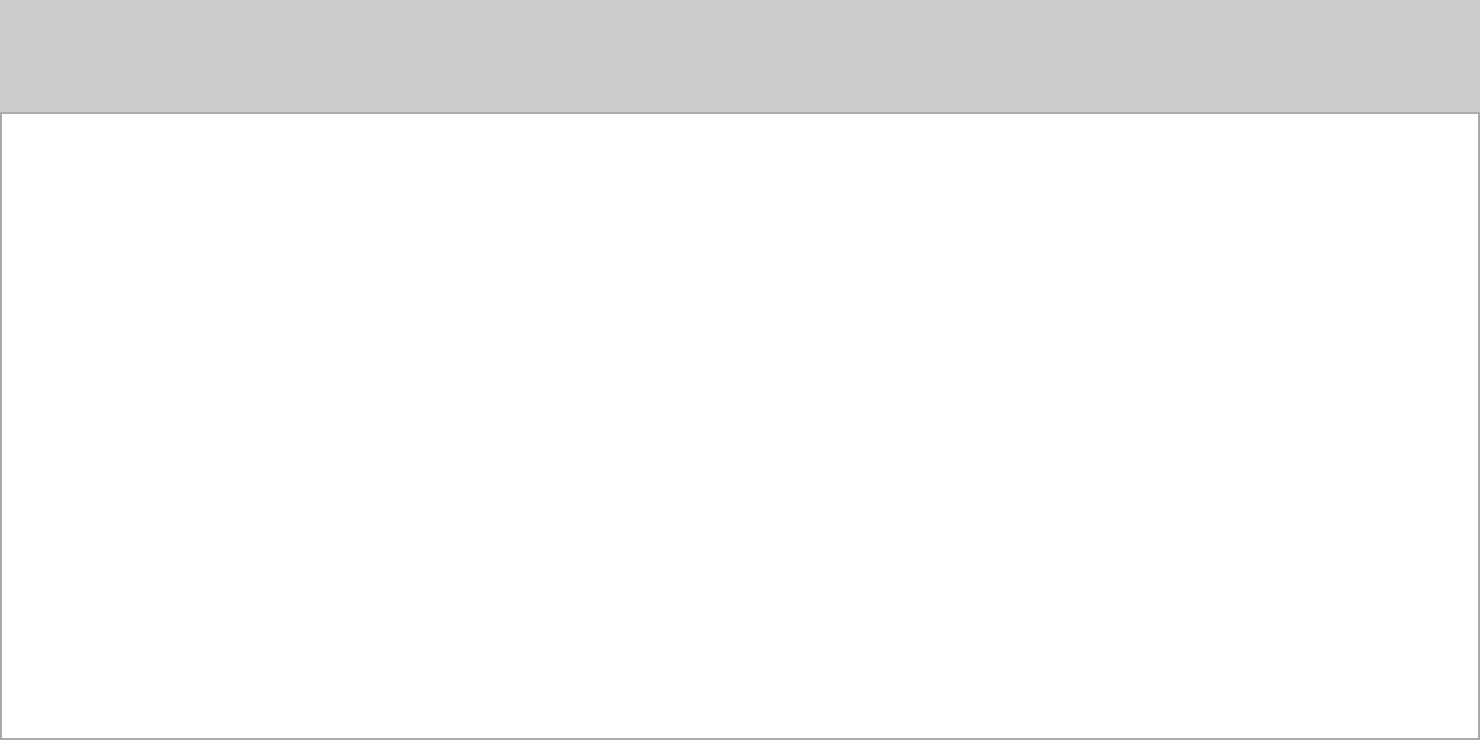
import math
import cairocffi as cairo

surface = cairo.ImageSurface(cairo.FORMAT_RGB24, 1480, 740)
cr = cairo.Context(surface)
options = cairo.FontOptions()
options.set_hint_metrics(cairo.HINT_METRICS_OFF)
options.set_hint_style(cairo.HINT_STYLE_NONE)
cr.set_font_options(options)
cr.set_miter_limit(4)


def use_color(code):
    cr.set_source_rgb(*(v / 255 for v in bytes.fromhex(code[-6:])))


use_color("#cccccc")
cr.paint()
use_color("#ffffff")
cr.rectangle(1, 113, 1478, 626)
cr.fill_preserve()
use_color("#ababab")
cr.stroke()
surface.write_to_png("result.png")
